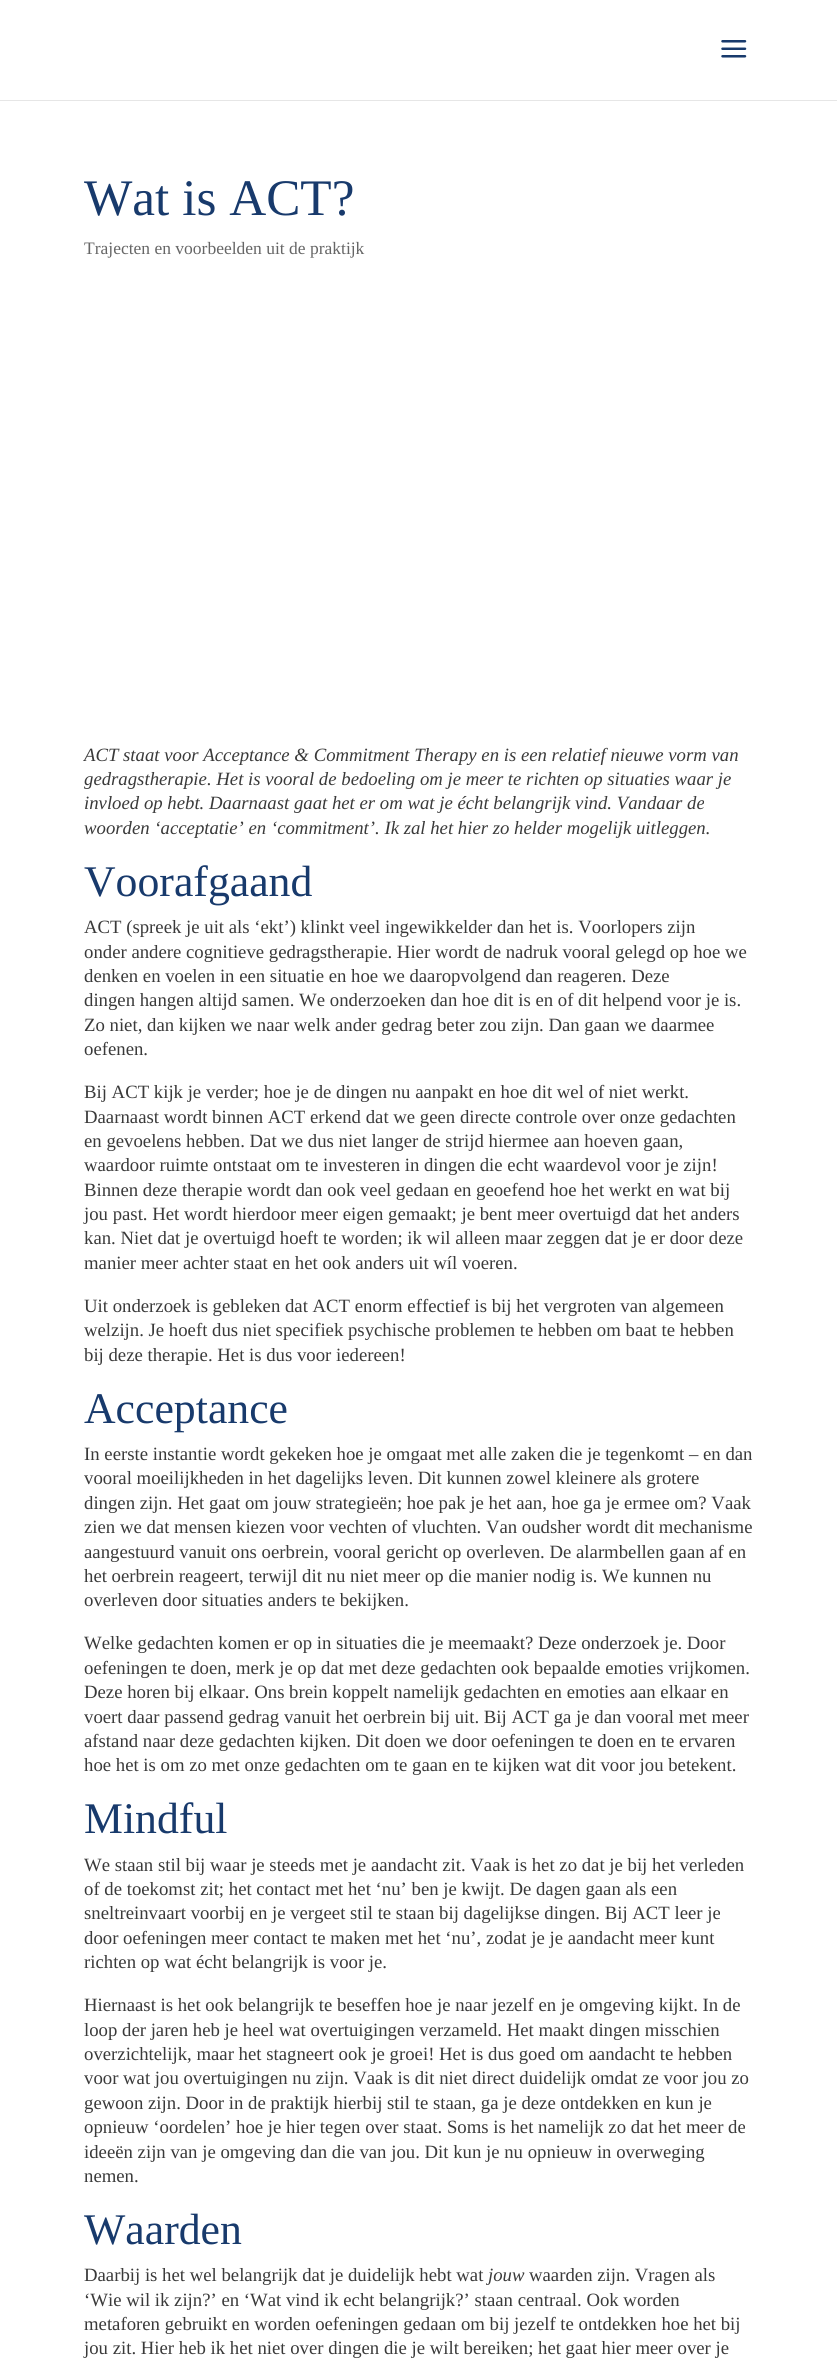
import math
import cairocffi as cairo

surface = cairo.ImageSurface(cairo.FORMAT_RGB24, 837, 2373)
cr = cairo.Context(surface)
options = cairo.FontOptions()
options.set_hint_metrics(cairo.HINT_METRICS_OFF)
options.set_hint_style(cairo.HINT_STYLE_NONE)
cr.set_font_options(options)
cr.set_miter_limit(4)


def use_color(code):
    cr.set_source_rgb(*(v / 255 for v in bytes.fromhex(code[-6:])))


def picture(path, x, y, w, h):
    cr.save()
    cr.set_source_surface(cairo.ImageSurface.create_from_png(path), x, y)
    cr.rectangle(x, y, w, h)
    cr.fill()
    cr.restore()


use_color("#ffffff")
cr.paint()
use_color("#e6e6e6")
cr.new_path()
cr.move_to(0, 100)
cr.line_to(0, 101)
cr.line_to(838, 101)
cr.line_to(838, 1)
cr.line_to(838, 100)
cr.close_path()
cr.fill()
picture("img1.png", 721, 40, 26, 18)
cr.select_font_face("Liberation Serif")
cr.set_font_size(51.25)
use_color("#183a6c")
cr.move_to(84, 215)
cr.show_text("Wat is ACT?")
cr.set_font_size(17.5)
use_color("#666666")
cr.move_to(84, 254)
cr.show_text("Trajecten en voorbeelden uit de praktijk")
cr.select_font_face("Liberation Serif", cairo.FONT_SLANT_ITALIC)
cr.set_font_size(18.75)
use_color("#3a3a3a")
cr.move_to(84, 761)
cr.show_text("ACT staat voor Acceptance & Commitment Therapy en is een relatief nieuwe vorm van")
cr.move_to(84, 785)
cr.show_text("gedragstherapie. Het is vooral de bedoeling om je meer te richten op situaties waar je")
cr.move_to(84, 809)
cr.show_text("invloed op hebt. Daarnaast gaat het er om wat je écht belangrijk vind. Vandaar de")
cr.move_to(84, 834)
cr.show_text("woorden ‘acceptatie’ en ‘commitment’. Ik zal het hier zo helder mogelijk uitleggen.")
cr.select_font_face("Liberation Serif")
cr.set_font_size(43.75)
use_color("#183a6c")
cr.move_to(84, 896)
cr.show_text("Voorafgaand")
cr.set_font_size(18.75)
use_color("#3a3a3a")
cr.move_to(84, 933)
cr.show_text("ACT (spreek je uit als ‘ekt’) klinkt veel ingewikkelder dan het is. Voorlopers zijn")
cr.move_to(84, 958)
cr.show_text("onder andere cognitieve gedragstherapie. Hier wordt de nadruk vooral gelegd op hoe we")
cr.move_to(84, 982)
cr.show_text("denken en voelen in een situatie en hoe we daaropvolgend dan reageren. Deze")
cr.move_to(84, 1006)
cr.show_text("dingen hangen altijd samen. We onderzoeken dan hoe dit is en of dit helpend voor je is.")
cr.move_to(84, 1031)
cr.show_text("Zo niet, dan kijken we naar welk ander gedrag beter zou zijn. Dan gaan we daarmee")
cr.move_to(84, 1055)
cr.show_text("oefenen.")
cr.move_to(84, 1098)
cr.show_text("Bij ACT kijk je verder; hoe je de dingen nu aanpakt en hoe dit wel of niet werkt.")
cr.move_to(84, 1123)
cr.show_text("Daarnaast wordt binnen ACT erkend dat we geen directe controle over onze gedachten")
cr.move_to(84, 1147)
cr.show_text("en gevoelens hebben. Dat we dus niet langer de strijd hiermee aan hoeven gaan,")
cr.move_to(84, 1171)
cr.show_text("waardoor ruimte ontstaat om te investeren in dingen die echt waardevol voor je zijn!")
cr.move_to(84, 1196)
cr.show_text("Binnen deze therapie wordt dan ook veel gedaan en geoefend hoe het werkt en wat bij")
cr.move_to(84, 1220)
cr.show_text("jou past. Het wordt hierdoor meer eigen gemaakt; je bent meer overtuigd dat het anders")
cr.move_to(84, 1244)
cr.show_text("kan. Niet dat je overtuigd hoeft te worden; ik wil alleen maar zeggen dat je er door deze")
cr.move_to(84, 1269)
cr.show_text("manier meer achter staat en het ook anders uit wíl voeren.")
cr.move_to(84, 1312)
cr.show_text("Uit onderzoek is gebleken dat ACT enorm effectief is bij het vergroten van algemeen")
cr.move_to(84, 1336)
cr.show_text("welzijn. Je hoeft dus niet specifiek psychische problemen te hebben om baat te hebben")
cr.move_to(84, 1361)
cr.show_text("bij deze therapie. Het is dus voor iedereen!")
cr.set_font_size(43.75)
use_color("#183a6c")
cr.move_to(84, 1423)
cr.show_text("Acceptance")
cr.set_font_size(18.75)
use_color("#3a3a3a")
cr.move_to(84, 1460)
cr.show_text("In eerste instantie wordt gekeken hoe je omgaat met alle zaken die je tegenkomt – en dan")
cr.move_to(84, 1484)
cr.show_text("vooral moeilijkheden in het dagelijks leven. Dit kunnen zowel kleinere als grotere")
cr.move_to(84, 1509)
cr.show_text("dingen zijn. Het gaat om jouw strategieën; hoe pak je het aan, hoe ga je ermee om? Vaak")
cr.move_to(84, 1533)
cr.show_text("zien we dat mensen kiezen voor vechten of vluchten. Van oudsher wordt dit mechanisme")
cr.move_to(84, 1558)
cr.show_text("aangestuurd vanuit ons oerbrein, vooral gericht op overleven. De alarmbellen gaan af en")
cr.move_to(84, 1582)
cr.show_text("het oerbrein reageert, terwijl dit nu niet meer op die manier nodig is. We kunnen nu")
cr.move_to(84, 1606)
cr.show_text("overleven door situaties anders te bekijken.")
cr.move_to(84, 1649)
cr.show_text("Welke gedachten komen er op in situaties die je meemaakt? Deze onderzoek je. Door")
cr.move_to(84, 1674)
cr.show_text("oefeningen te doen, merk je op dat met deze gedachten ook bepaalde emoties vrijkomen.")
cr.move_to(84, 1698)
cr.show_text("Deze horen bij elkaar. Ons brein koppelt namelijk gedachten en emoties aan elkaar en")
cr.move_to(84, 1723)
cr.show_text("voert daar passend gedrag vanuit het oerbrein bij uit. Bij ACT ga je dan vooral met meer")
cr.move_to(84, 1747)
cr.show_text("afstand naar deze gedachten kijken. Dit doen we door oefeningen te doen en te ervaren")
cr.move_to(84, 1771)
cr.show_text("hoe het is om zo met onze gedachten om te gaan en te kijken wat dit voor jou betekent.")
cr.set_font_size(43.75)
use_color("#183a6c")
cr.move_to(84, 1833)
cr.show_text("Mindful")
cr.set_font_size(18.75)
use_color("#3a3a3a")
cr.move_to(84, 1871)
cr.show_text("We staan stil bij waar je steeds met je aandacht zit. Vaak is het zo dat je bij het verleden")
cr.move_to(84, 1895)
cr.show_text("of de toekomst zit; het contact met het ‘nu’ ben je kwijt. De dagen gaan als een")
cr.move_to(84, 1919)
cr.show_text("sneltreinvaart voorbij en je vergeet stil te staan bij dagelijkse dingen. Bij ACT leer je")
cr.move_to(84, 1944)
cr.show_text("door oefeningen meer contact te maken met het ‘nu’, zodat je je aandacht meer kunt")
cr.move_to(84, 1968)
cr.show_text("richten op wat écht belangrijk is voor je.")
cr.move_to(84, 2011)
cr.show_text("Hiernaast is het ook belangrijk te beseffen hoe je naar jezelf en je omgeving kijkt. In de")
cr.move_to(84, 2036)
cr.show_text("loop der jaren heb je heel wat overtuigingen verzameld. Het maakt dingen misschien")
cr.move_to(84, 2060)
cr.show_text("overzichtelijk, maar het stagneert ook je groei! Het is dus goed om aandacht te hebben")
cr.move_to(84, 2084)
cr.show_text("voor wat jou overtuigingen nu zijn. Vaak is dit niet direct duidelijk omdat ze voor jou zo")
cr.move_to(84, 2109)
cr.show_text("gewoon zijn. Door in de praktijk hierbij stil te staan, ga je deze ontdekken en kun je")
cr.move_to(84, 2133)
cr.show_text("opnieuw ‘oordelen’ hoe je hier tegen over staat. Soms is het namelijk zo dat het meer de")
cr.move_to(84, 2158)
cr.show_text("ideeën zijn van je omgeving dan die van jou. Dit kun je nu opnieuw in overweging")
cr.move_to(84, 2182)
cr.show_text("nemen.")
cr.set_font_size(43.75)
use_color("#183a6c")
cr.move_to(84, 2244)
cr.show_text("Waarden")
cr.set_font_size(18.75)
use_color("#3a3a3a")
cr.move_to(84, 2281)
cr.show_text("Daarbij is het wel belangrijk dat je duidelijk hebt wat")
cr.select_font_face("Liberation Serif", cairo.FONT_SLANT_ITALIC)
cr.move_to(488, 2281)
cr.show_text("jouw")
cr.select_font_face("Liberation Serif")
cr.move_to(529, 2281)
cr.show_text("waarden zijn. Vragen als")
cr.move_to(84, 2306)
cr.show_text("‘Wie wil ik zijn?’ en ‘Wat vind ik echt belangrijk?’ staan centraal. Ook worden")
cr.move_to(84, 2330)
cr.show_text("metaforen gebruikt en worden oefeningen gedaan om bij jezelf te ontdekken hoe het bij")
cr.move_to(84, 2354)
cr.show_text("jou zit. Hier heb ik het niet over dingen die je wilt bereiken; het gaat hier meer over je")
surface.write_to_png("result.png")
